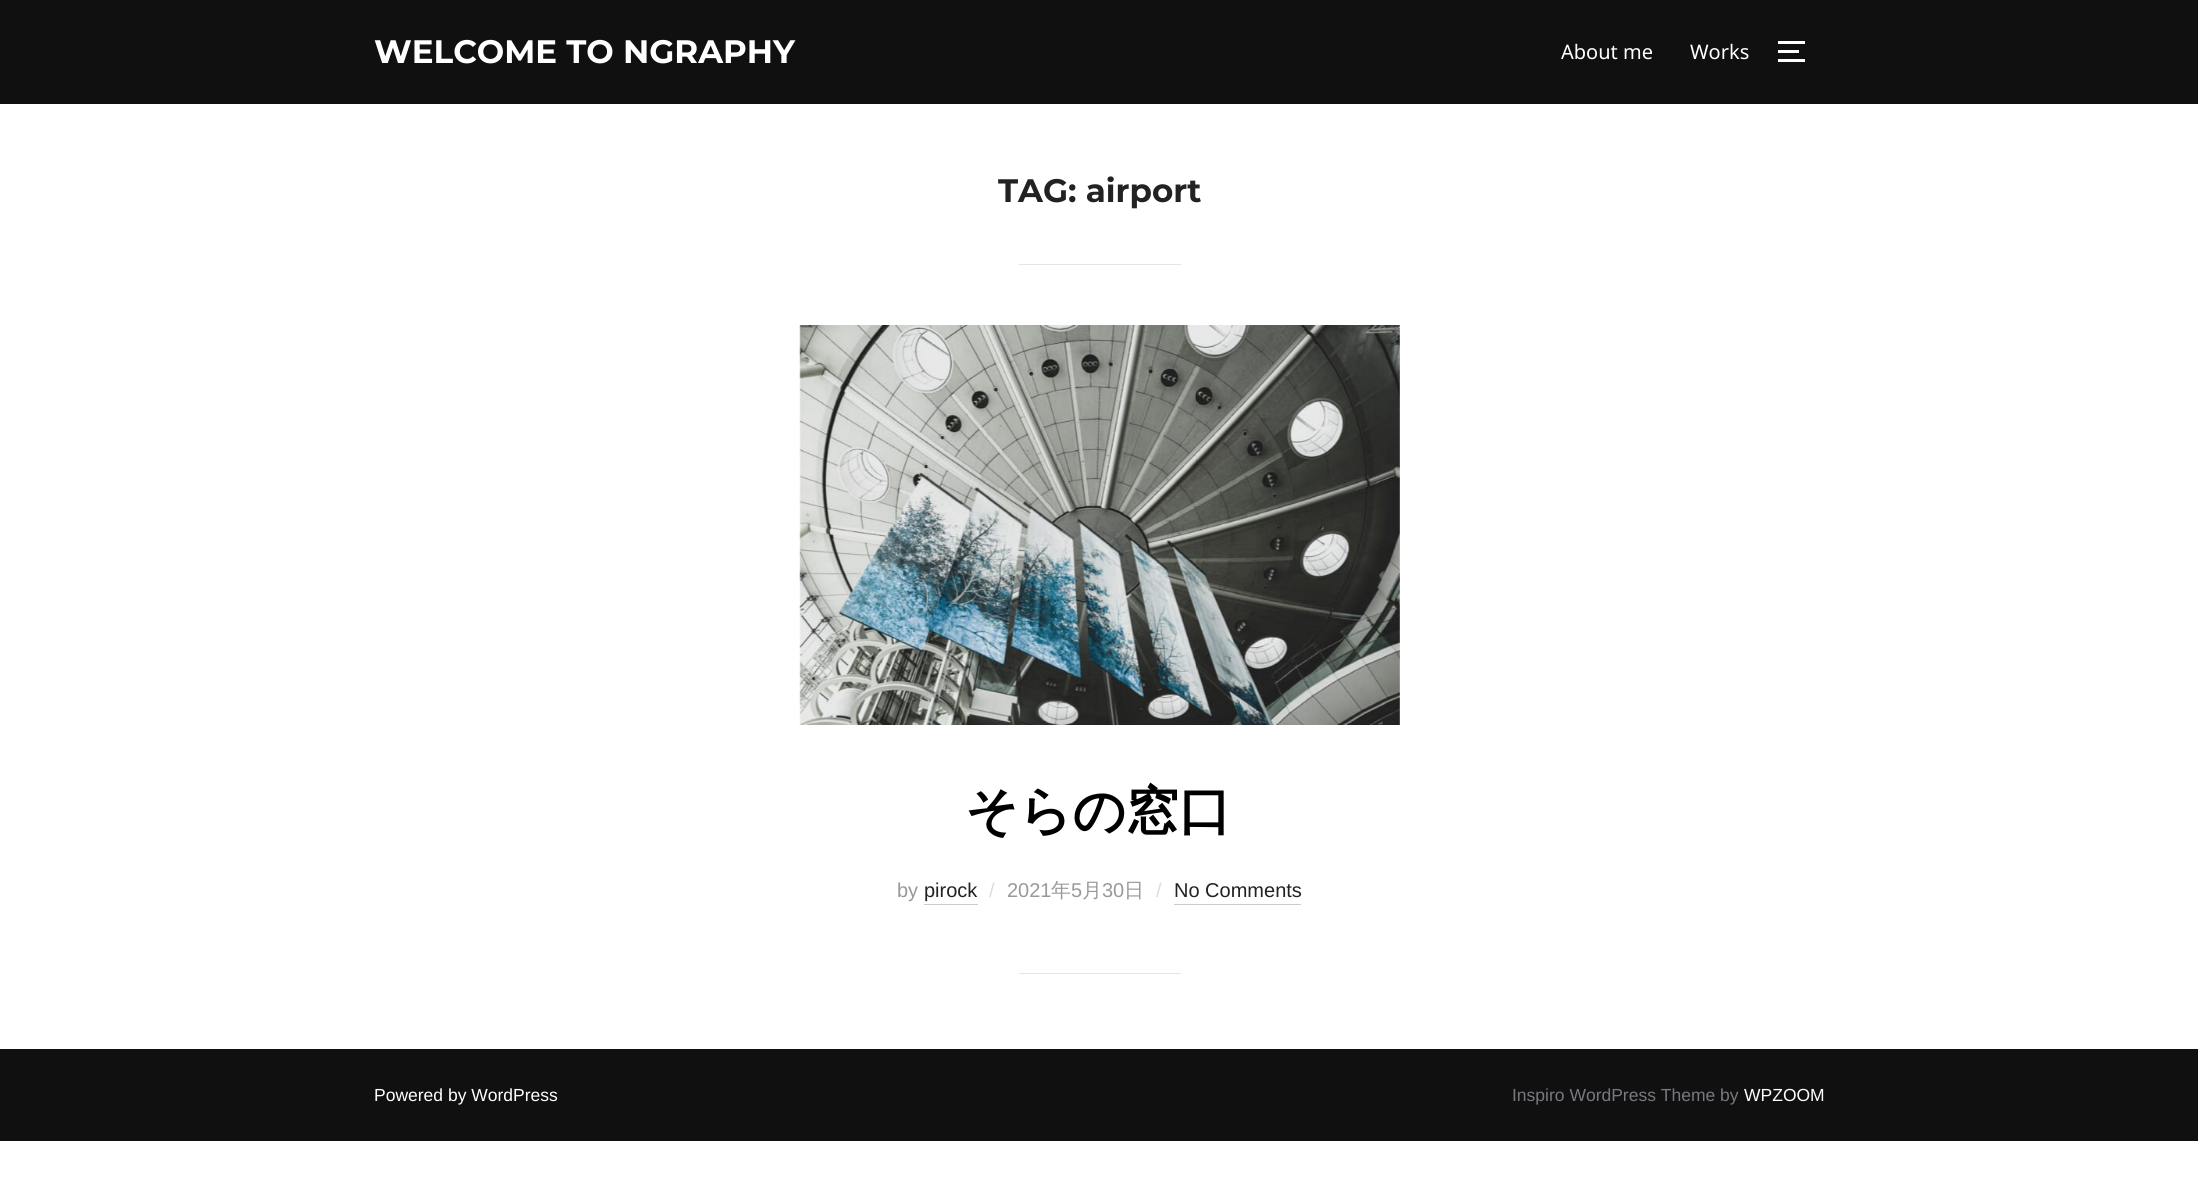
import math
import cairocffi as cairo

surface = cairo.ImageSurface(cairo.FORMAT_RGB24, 2198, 1200)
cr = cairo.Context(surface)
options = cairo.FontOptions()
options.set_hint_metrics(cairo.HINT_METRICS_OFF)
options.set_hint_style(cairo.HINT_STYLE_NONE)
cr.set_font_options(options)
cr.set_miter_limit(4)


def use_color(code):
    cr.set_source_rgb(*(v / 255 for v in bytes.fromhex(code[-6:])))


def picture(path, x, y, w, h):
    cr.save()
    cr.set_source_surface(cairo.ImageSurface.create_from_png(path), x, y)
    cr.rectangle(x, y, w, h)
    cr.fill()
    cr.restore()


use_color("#ffffff")
cr.paint()
use_color("#101010")
cr.rectangle(0, 0, 2198, 104)
cr.fill()
cr.select_font_face("Montserrat Thin")
cr.set_font_size(32.5)
use_color("#ffffff")
cr.move_to(374, 63)
cr.show_text("WELCOME TO NGRAPHY")
cr.select_font_face("Noto Sans")
cr.set_font_size(20)
cr.move_to(1561, 59)
cr.show_text("About me")
cr.move_to(1690, 59)
cr.show_text("Works")
cr.rectangle(1778, 41, 27, 3)
cr.fill()
cr.rectangle(1778, 50, 21, 3)
cr.fill()
cr.rectangle(1778, 59, 27, 3)
cr.fill()
cr.select_font_face("Montserrat Thin")
cr.set_font_size(32.5)
use_color("#222222")
cr.move_to(998, 202)
cr.show_text("TAG: airport")
use_color("#e6e6e6")
cr.rectangle(1019, 264, 162, 1)
cr.fill()
picture("img1.png", 799, 325, 601, 400)
cr.select_font_face("WenQuanYi Zen Hei", cairo.FONT_SLANT_NORMAL, cairo.FONT_WEIGHT_BOLD)
cr.set_font_size(52.5)
use_color("#000000")
cr.move_to(965, 829)
cr.show_text("そらの窓口")
cr.select_font_face("Liberation Sans")
cr.set_font_size(20)
use_color("#999999")
cr.move_to(897, 897)
cr.show_text("by")
use_color("#222222")
cr.move_to(924, 897)
cr.show_text("pirock")
use_color("#cccccc")
cr.rectangle(924, 904, 54, 1)
cr.fill()
use_color("#dbdddd")
cr.move_to(989, 897)
cr.show_text("/")
use_color("#999999")
cr.move_to(1007, 897)
cr.show_text("2021")
cr.select_font_face("WenQuanYi Zen Hei Medium")
cr.move_to(1051, 897)
cr.show_text("年")
cr.select_font_face("Liberation Sans")
cr.move_to(1071, 897)
cr.show_text("5")
cr.select_font_face("WenQuanYi Zen Hei Medium")
cr.move_to(1082, 897)
cr.show_text("月")
cr.select_font_face("Liberation Sans")
cr.move_to(1102, 897)
cr.show_text("30")
cr.select_font_face("WenQuanYi Zen Hei Medium")
cr.move_to(1124, 897)
cr.show_text("日")
cr.select_font_face("Liberation Sans")
use_color("#dbdddd")
cr.move_to(1156, 897)
cr.show_text("/")
use_color("#222222")
cr.move_to(1174, 897)
cr.show_text("No Comments")
use_color("#cccccc")
cr.rectangle(1174, 904, 127, 1)
cr.fill()
use_color("#e6e6e6")
cr.rectangle(1019, 973, 162, 1)
cr.fill()
use_color("#101010")
cr.rectangle(0, 1049, 2198, 92)
cr.fill()
cr.set_font_size(17.5)
use_color("#ffffff")
cr.move_to(374, 1101)
cr.show_text("Powered by WordPress")
use_color("#78787f")
cr.move_to(1512, 1101)
cr.show_text("Inspiro WordPress Theme by")
use_color("#ffffff")
cr.move_to(1744, 1101)
cr.show_text("WPZOOM")
surface.write_to_png("result.png")
